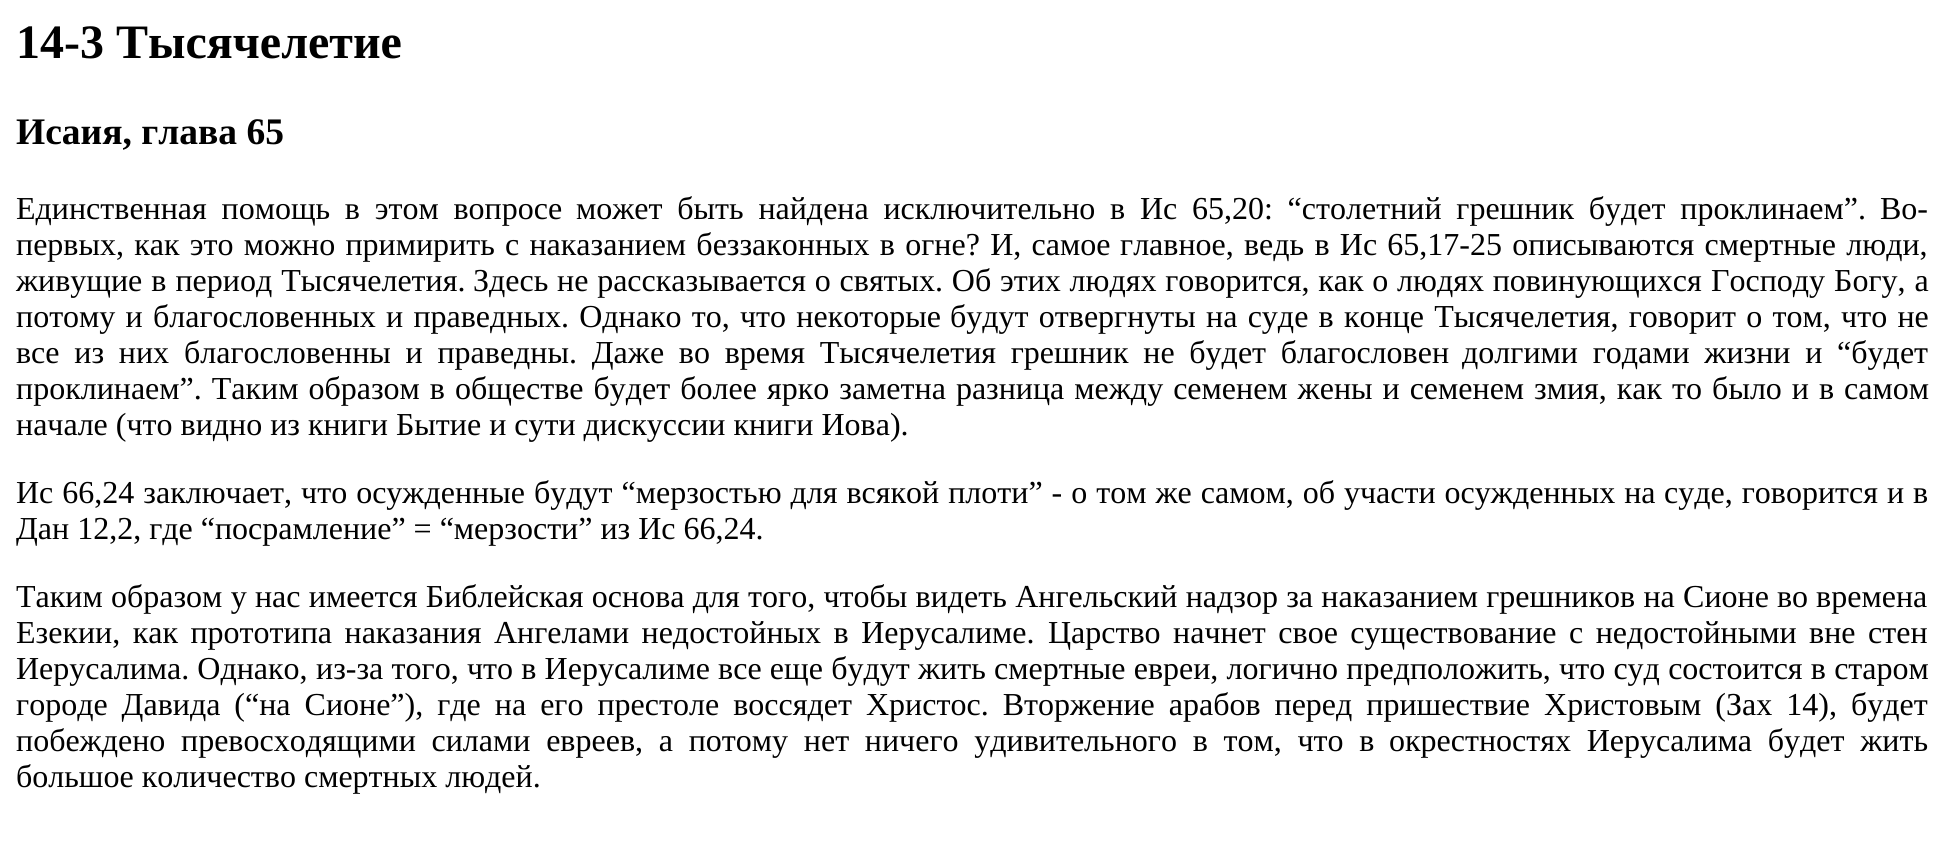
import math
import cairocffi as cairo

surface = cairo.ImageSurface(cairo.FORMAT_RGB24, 1943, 847)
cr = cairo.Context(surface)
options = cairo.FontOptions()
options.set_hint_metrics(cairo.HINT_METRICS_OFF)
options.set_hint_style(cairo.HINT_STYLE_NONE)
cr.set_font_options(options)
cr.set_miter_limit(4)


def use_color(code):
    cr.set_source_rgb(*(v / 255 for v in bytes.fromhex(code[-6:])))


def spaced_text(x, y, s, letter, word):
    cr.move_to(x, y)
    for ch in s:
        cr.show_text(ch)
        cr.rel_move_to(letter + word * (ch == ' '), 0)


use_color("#ffffff")
cr.paint()
cr.select_font_face("Liberation Serif", cairo.FONT_SLANT_NORMAL, cairo.FONT_WEIGHT_BOLD)
cr.set_font_size(48)
use_color("#000000")
cr.move_to(16, 58)
cr.show_text("14-3 Тысячелетие")
cr.set_font_size(37.5)
cr.move_to(16, 144)
cr.show_text("Исаия, глава 65")
cr.select_font_face("Liberation Serif")
cr.set_font_size(32)
spaced_text(16, 219, "Единственная помощь в этом вопросе", 0, 6.75)
spaced_text(576, 219, "может быть найдена исключительно в Ис 65,20: “столетний грешник будет проклинаем”.", 0, 6.75)
cr.move_to(1880, 219)
cr.show_text("Во-")
spaced_text(16, 255, "первых, как это можно примирить с наказанием беззаконных в огне? И, самое", 0, 2.25)
spaced_text(1120, 255, "главное, ведь в Ис 65,17-25 описываются смертные люди,", 0, 2.25)
spaced_text(16, 291, "живущие в период Тысячелетия.", 0, 1)
spaced_text(473, 291, "Здесь не рассказывается о святых. Об этих людях говорится, как о людях повинующихся", 0, 0.75)
spaced_text(1711, 291, "Господу Богу, а", 0, 1)
spaced_text(16, 327, "потому и благословенных и праведных. Однако то, что некоторые", 0, 2.25)
spaced_text(950, 327, "будут отвергнуты на суде в конце Тысячелетия, говорит о том, что не", 0, 2.25)
spaced_text(16, 363, "все из них", 0, 6.75)
spaced_text(184, 363, "благословенны и праведны. Даже во время Тысячелетия грешник не будет благословен", 0, 6.75)
spaced_text(1462, 363, "долгими годами жизни и “будет", 0, 6.75)
spaced_text(16, 399, "проклинаем”. Таким образом в обществе будет более", 0, 2)
spaced_text(767, 399, "ярко заметна разница между семенем жены и семенем змия, как то было и в самом", 0, 2)
cr.move_to(16, 435)
cr.show_text("начале (что видно из книги Бытие и сути дискуссии книги Иова).")
spaced_text(16, 503, "Ис 66,24 заключает, что осужденные", 0, 1)
spaced_text(534, 503, "будут “мерзостью для всякой плоти” - о том же самом, об участи осужденных на", 0, 1)
spaced_text(1664, 503, "суде, говорится и в", 0, 1)
cr.move_to(16, 539)
cr.show_text("Дан 12,2, где “посрамление” = “мерзости” из Ис 66,24.")
spaced_text(16, 607, "Таким образом у нас имеется Библейская основа для того, чтобы видеть Ангельский надзор за наказанием грешников на Сионе", 0, 0.3)
cr.move_to(1777, 607)
cr.show_text("во времена")
spaced_text(16, 643, "Езекии, как прототипа наказания Ангелами недостойных в Иерусалиме.", 0, 4.5)
spaced_text(1048, 643, "Царство начнет свое существование с недостойными вне стен", 0, 4.5)
cr.move_to(16, 679)
cr.show_text("Иерусалима. Однако,")
spaced_text(316, 679, "из-за того, что в Иерусалиме все еще будут жить смертные евреи, логично предположить, что суд состоится в старом", 0, 0.25)
spaced_text(16, 715, "городе Давида (“на Сионе”), где на его престоле воссядет", 0, 6)
spaced_text(866, 715, "Христос. Вторжение арабов перед пришествие Христовым (Зах 14), будет", 0, 6)
cr.move_to(16, 751)
cr.show_text("побеждено")
spaced_text(181, 751, "превосходящими силами евреев, а потому нет ничего удивительного в том, что в", 0, 7.75)
spaced_text(1389, 751, "окрестностях Иерусалима будет жить", 0, 7.75)
cr.move_to(16, 787)
cr.show_text("большое количество смертных людей.")
surface.write_to_png("result.png")
